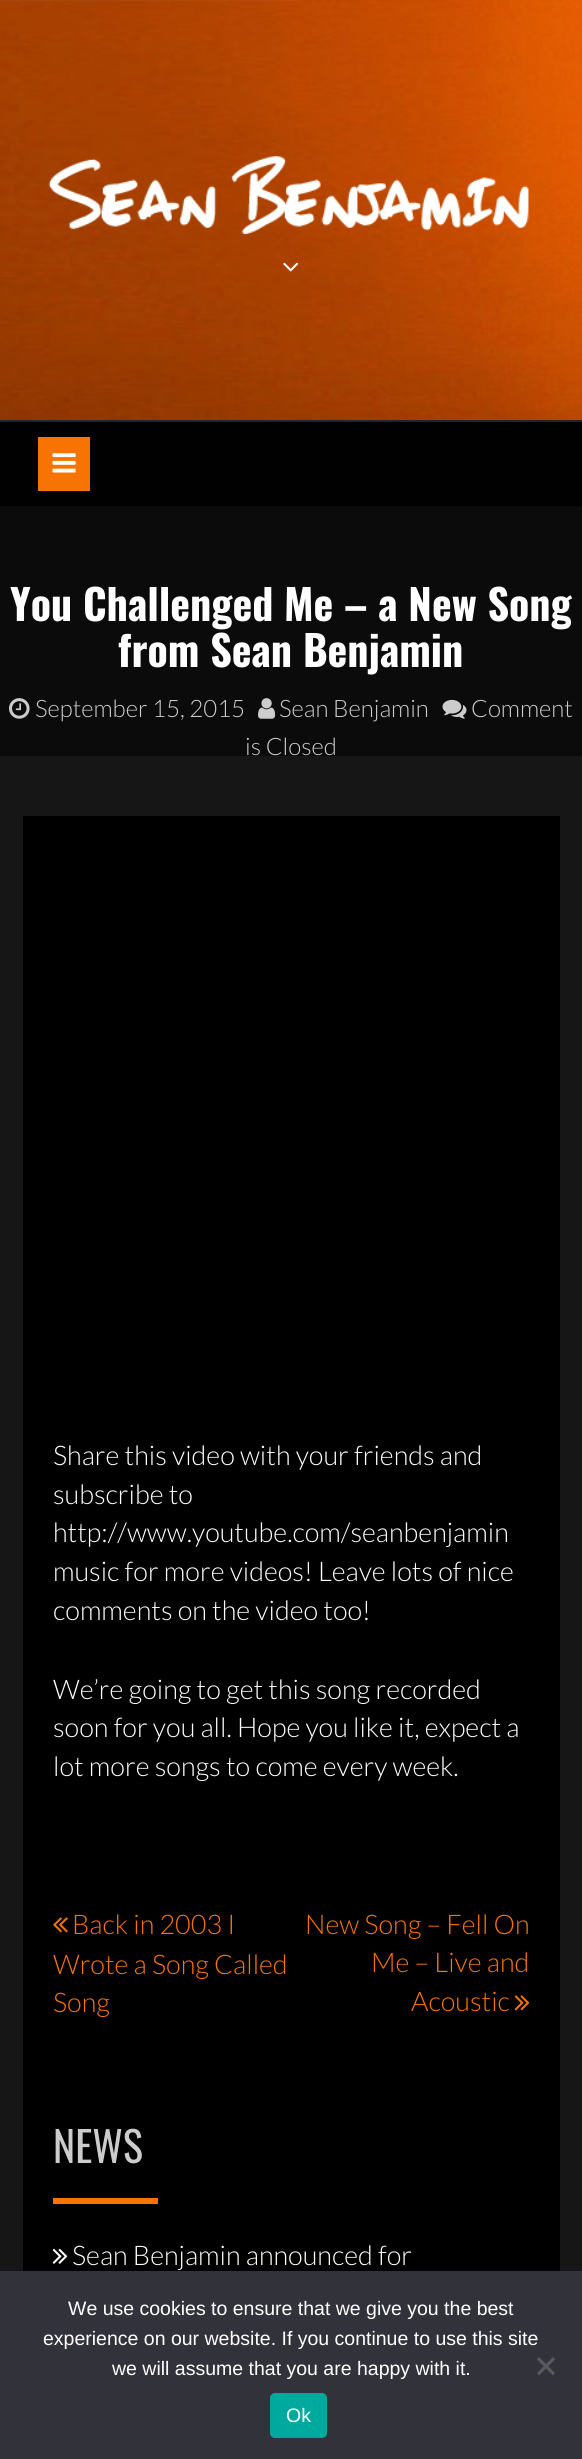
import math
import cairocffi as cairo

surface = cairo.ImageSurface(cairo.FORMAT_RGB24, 582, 2459)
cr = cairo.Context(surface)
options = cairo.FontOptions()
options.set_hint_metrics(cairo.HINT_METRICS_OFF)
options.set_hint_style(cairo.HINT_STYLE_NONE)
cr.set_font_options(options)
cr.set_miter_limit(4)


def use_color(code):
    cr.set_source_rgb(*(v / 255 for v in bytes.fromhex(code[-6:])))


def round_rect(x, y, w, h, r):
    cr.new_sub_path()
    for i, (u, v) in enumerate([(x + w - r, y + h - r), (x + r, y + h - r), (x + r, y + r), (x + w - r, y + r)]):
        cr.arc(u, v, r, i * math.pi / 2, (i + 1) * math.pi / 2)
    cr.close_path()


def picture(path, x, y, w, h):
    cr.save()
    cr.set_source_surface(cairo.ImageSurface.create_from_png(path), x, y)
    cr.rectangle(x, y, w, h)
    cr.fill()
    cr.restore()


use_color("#161616")
cr.paint()
use_color("#010101")
cr.rectangle(0, 422, 582, 84)
cr.fill()
use_color("#252525")
cr.rectangle(0, 420, 582, 2)
cr.fill()
picture("img1.png", 0, 0, 582, 420)
picture("img2.png", 48, 156, 481, 79)
picture("img3.png", 283, 262, 16, 10)
use_color("#f77402")
cr.rectangle(38, 437, 52, 54)
cr.fill()
picture("img4.png", 52, 453, 24, 20)
use_color("#0b0b0b")
cr.rectangle(0, 506, 582, 250)
cr.fill()
cr.select_font_face("Oswald", cairo.FONT_SLANT_NORMAL, cairo.FONT_WEIGHT_BOLD)
cr.set_font_size(42)
use_color("#ffffff")
cr.move_to(10, 621)
cr.show_text("You Challenged Me – a New Song")
cr.move_to(118, 667)
cr.show_text("from Sean Benjamin")
picture("img5.png", 9, 698, 21, 21)
cr.select_font_face("Lato Light")
cr.set_font_size(24)
use_color("#cccccc")
cr.move_to(35, 717)
cr.show_text("September 15, 2015")
picture("img6.png", 442, 699, 25, 20)
cr.move_to(471, 717)
cr.show_text("Comment")
cr.move_to(245, 755)
cr.show_text("is Closed")
picture("img7.png", 258, 698, 18, 21)
cr.move_to(279, 717)
cr.show_text("Sean Benjamin")
use_color("#000000")
cr.rectangle(23, 816, 537, 1455)
cr.fill()
cr.set_font_size(27)
use_color("#ffffff")
cr.move_to(53, 1465)
cr.show_text("Share this video with your friends and")
cr.move_to(53, 1504)
cr.show_text("subscribe to")
cr.move_to(53, 1542)
cr.show_text("http://www.youtube.com/seanbenjamin")
cr.move_to(53, 1581)
cr.show_text("music for more videos! Leave lots of nice")
cr.move_to(53, 1620)
cr.show_text("comments on the video too!")
cr.move_to(53, 1699)
cr.show_text("We’re going to get this song recorded")
cr.move_to(53, 1737)
cr.show_text("soon for you all. Hope you like it, expect a")
cr.move_to(53, 1776)
cr.show_text("lot more songs to come every week.")
picture("img8.png", 53, 1917, 15, 16)
use_color("#f77402")
cr.move_to(72, 1934)
cr.show_text("Back in 2003 I")
cr.move_to(53, 1974)
cr.show_text("Wrote a Song Called")
cr.move_to(53, 2012)
cr.show_text("Song")
cr.move_to(305, 1934)
cr.show_text("New Song – Fell On")
cr.move_to(371, 1972)
cr.show_text("Me – Live and")
cr.move_to(411, 2011)
cr.show_text("Acoustic")
picture("img9.png", 514, 1995, 16, 16)
cr.select_font_face("Oswald")
cr.set_font_size(42)
use_color("#cccccc")
cr.move_to(53, 2163)
cr.show_text("NEWS")
use_color("#f77402")
cr.rectangle(53, 2198, 105, 6)
cr.fill()
picture("img10.png", 52, 2248, 16, 16)
cr.select_font_face("Lato Light")
cr.set_font_size(27)
use_color("#ffffff")
cr.move_to(72, 2265)
cr.show_text("Sean Benjamin announced for")
use_color("#32323a")
cr.rectangle(0, 2271, 582, 188)
cr.fill()
cr.select_font_face("Liberation Sans")
cr.set_font_size(19.5)
use_color("#ffffff")
cr.move_to(68, 2315)
cr.show_text("We use cookies to ensure that we give you the best")
cr.move_to(43, 2345)
cr.show_text("experience on our website. If you continue to use this site")
cr.move_to(112, 2375)
cr.show_text("we will assume that you are happy with it.")
use_color("#59595d")
cr.new_path()
cr.move_to(553, 2357)
cr.line_to(555, 2359.5)
cr.line_to(539, 2375.5)
cr.line_to(537, 2373)
cr.close_path()
cr.fill()
cr.new_path()
cr.move_to(537, 2359.5)
cr.line_to(539, 2357)
cr.line_to(555, 2373)
cr.line_to(553, 2375.5)
cr.close_path()
cr.fill()
use_color("#00a99d")
round_rect(270, 2393, 57, 45, 5)
cr.fill()
use_color("#ffffff")
cr.move_to(286, 2422)
cr.show_text("Ok")
surface.write_to_png("result.png")
